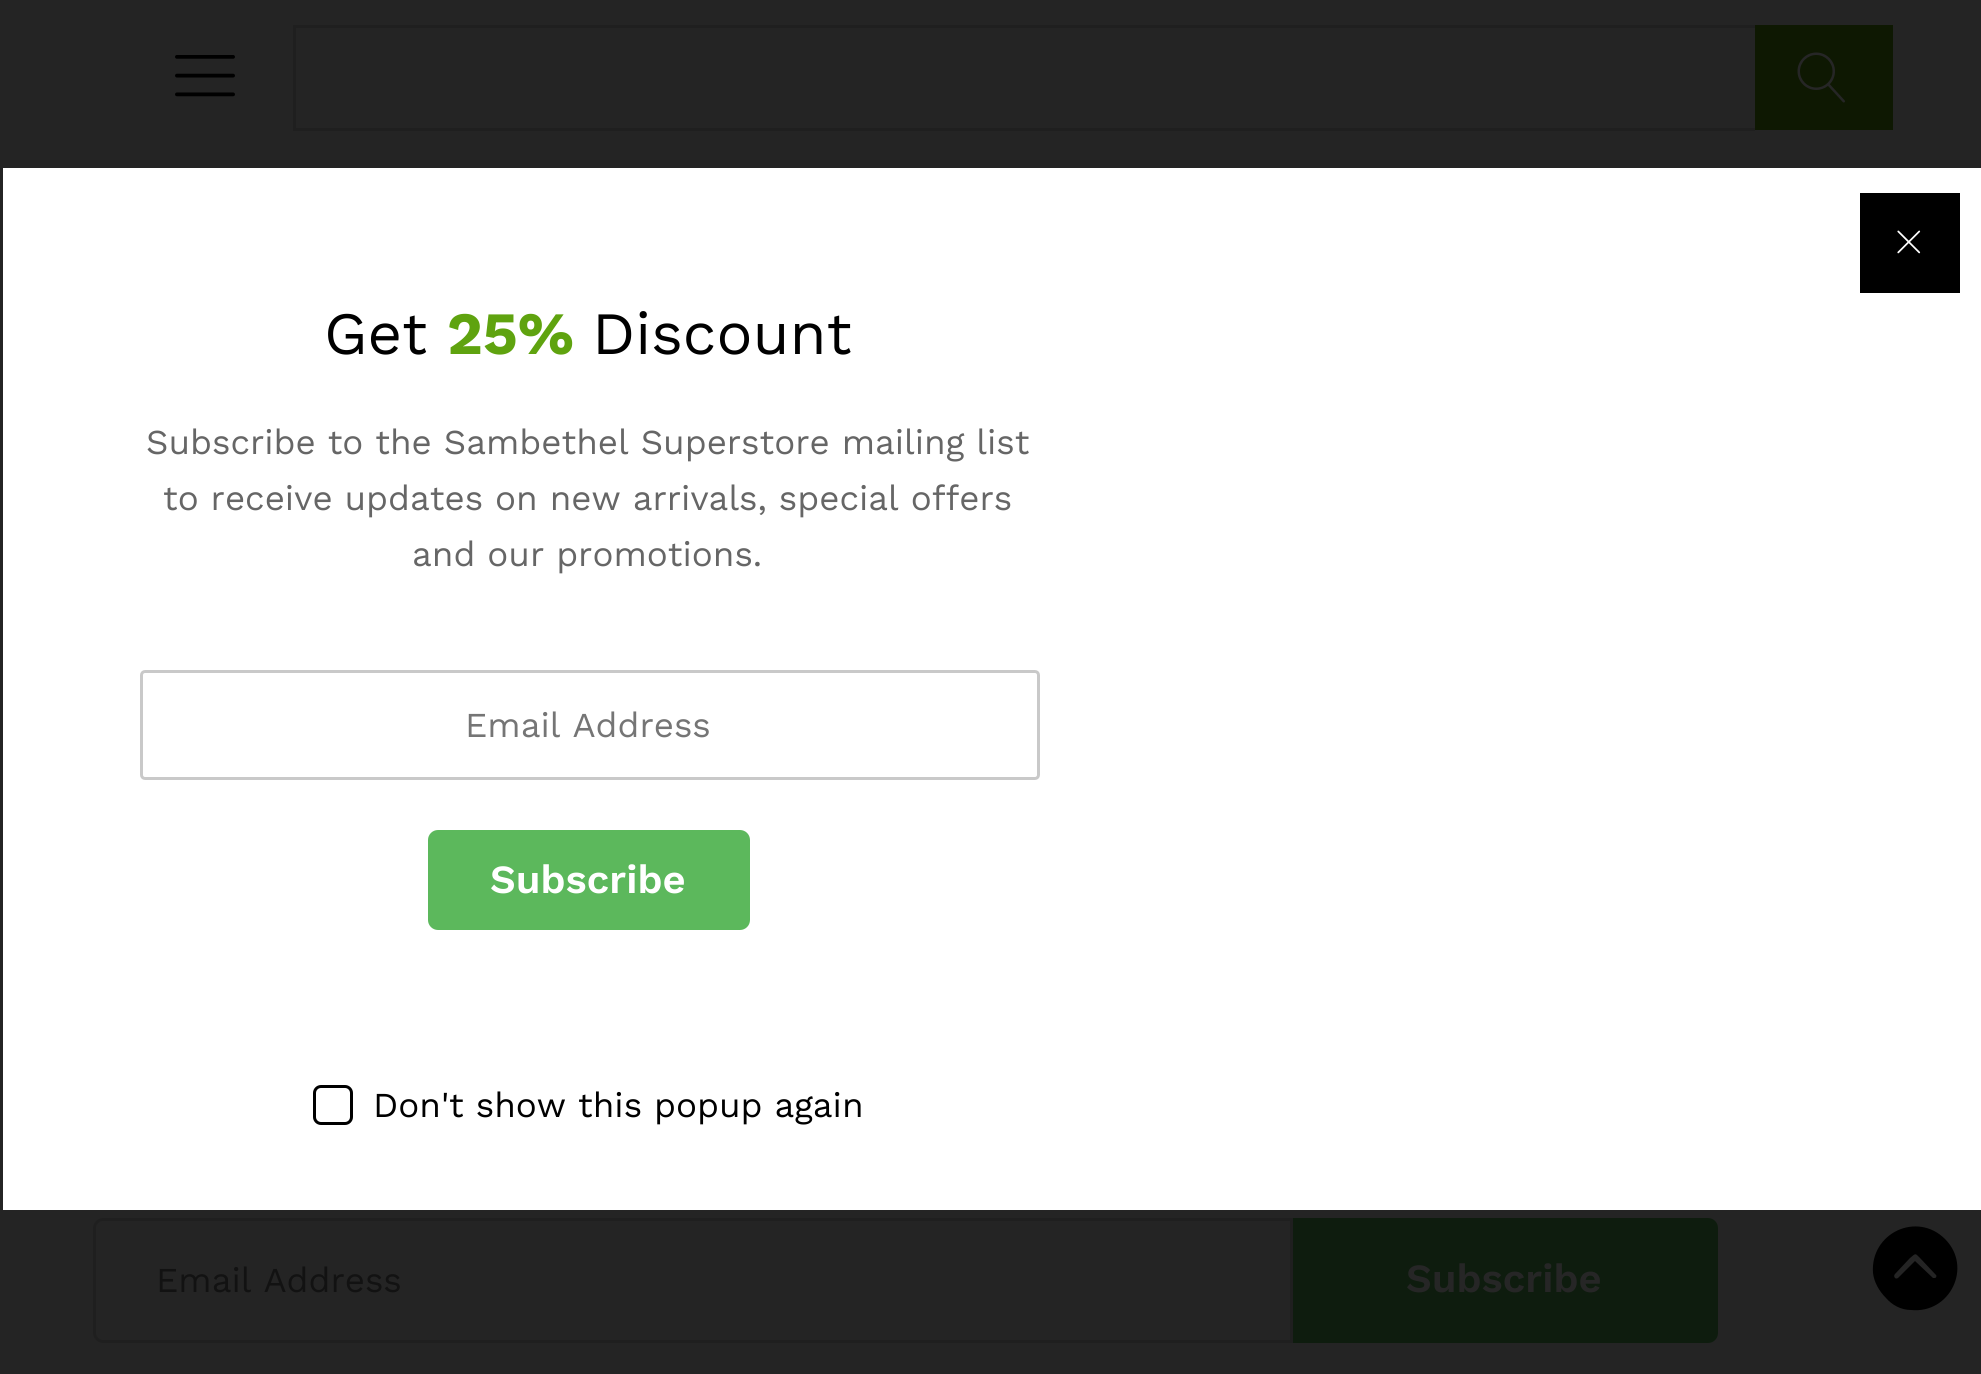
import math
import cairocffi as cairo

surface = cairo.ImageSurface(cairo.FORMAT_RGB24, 1981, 1374)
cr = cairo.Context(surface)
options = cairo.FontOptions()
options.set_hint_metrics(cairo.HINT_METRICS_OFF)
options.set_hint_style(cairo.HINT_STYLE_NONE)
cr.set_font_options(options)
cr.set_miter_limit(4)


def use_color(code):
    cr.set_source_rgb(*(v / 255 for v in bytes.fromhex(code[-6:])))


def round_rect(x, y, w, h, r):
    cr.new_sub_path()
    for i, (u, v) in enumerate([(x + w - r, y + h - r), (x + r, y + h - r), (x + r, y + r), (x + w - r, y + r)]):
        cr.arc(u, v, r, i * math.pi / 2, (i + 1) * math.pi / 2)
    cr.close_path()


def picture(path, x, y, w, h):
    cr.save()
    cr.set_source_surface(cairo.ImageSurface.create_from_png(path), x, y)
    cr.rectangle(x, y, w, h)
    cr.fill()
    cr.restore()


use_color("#242424")
cr.paint()
use_color("#ffffff")
cr.rectangle(3, 168, 1978, 1042)
cr.fill()
use_color("#000000")
cr.rectangle(1860, 193, 100, 100)
cr.fill()
picture("img1.png", 1897, 230, 24, 24)
cr.select_font_face("Work Sans")
cr.set_font_size(60)
cr.move_to(324, 354)
cr.show_text("Get")
cr.select_font_face("Work Sans", cairo.FONT_SLANT_NORMAL, cairo.FONT_WEIGHT_BOLD)
use_color("#5fa30f")
cr.move_to(447, 354)
cr.show_text("25%")
cr.select_font_face("Work Sans")
use_color("#000000")
cr.move_to(592, 354)
cr.show_text("Discount")
cr.set_font_size(35)
use_color("#666666")
cr.move_to(146, 454)
cr.show_text("Subscribe to the Sambethel Superstore mailing list")
cr.move_to(163, 510)
cr.show_text("to receive updates on new arrivals, special offers")
cr.move_to(412, 566)
cr.show_text("and our promotions.")
round_rect(141.5, 671.5, 897, 107, 3.5)
use_color("#c9c9c9")
cr.set_line_width(3)
cr.stroke()
use_color("#757575")
cr.move_to(465, 737)
cr.show_text("Email Address")
use_color("#5cb85c")
round_rect(428, 830, 322, 100, 10)
cr.fill()
cr.select_font_face("Work Sans SemiBold")
cr.set_font_size(40)
use_color("#ffffff")
cr.move_to(490, 893)
cr.show_text("Subscribe")
round_rect(314.5, 1086.5, 37, 37, 6.5)
use_color("#000000")
cr.stroke()
cr.select_font_face("Work Sans")
cr.set_font_size(35)
cr.move_to(373, 1117)
cr.show_text("Don't show this popup again")
picture("img2.png", 175, 55, 60, 42)
use_color("#1f1f1f")
cr.rectangle(293, 25, 1462, 3)
cr.fill()
cr.rectangle(293, 128, 1462, 3)
cr.fill()
cr.rectangle(293, 25, 3, 105)
cr.fill()
use_color("#0e1802")
cr.rectangle(1755, 25, 138, 105)
cr.fill()
picture("img3.png", 1797, 52, 48, 51)
cr.new_path()
cr.move_to(103, 1219.5)
cr.line_to(1291.5, 1219.5)
cr.line_to(1291.5, 1341.5)
cr.line_to(103, 1341.5)
cr.curve_to(98.5, 1341.5, 94.5, 1337.5, 94.5, 1333)
cr.line_to(94.5, 1228)
cr.curve_to(94.5, 1223.5, 98.5, 1219.5, 103, 1219.5)
cr.close_path()
use_color("#1f1f1f")
cr.stroke()
use_color("#121212")
cr.move_to(156, 1292)
cr.show_text("Email Address")
use_color("#0e1c0e")
cr.new_path()
cr.move_to(1293, 1218)
cr.line_to(1708, 1218)
cr.curve_to(1713.5, 1218, 1718, 1222.5, 1718, 1228)
cr.line_to(1718, 1333)
cr.curve_to(1718, 1338.5, 1713.5, 1343, 1708, 1343)
cr.line_to(1293, 1343)
cr.close_path()
cr.fill()
cr.select_font_face("Work Sans SemiBold")
cr.set_font_size(40)
use_color("#262626")
cr.move_to(1406, 1292)
cr.show_text("Subscribe")
use_color("#000000")
cr.new_path()
cr.move_to(1886, 1298)
cr.curve_to(1892, 1305, 1901, 1310, 1911, 1310)
cr.curve_to(1950, 1314, 1973, 1267, 1945, 1239)
cr.curve_to(1917, 1211, 1870, 1233, 1873, 1273)
cr.curve_to(1874, 1282, 1879, 1291, 1886, 1298)
cr.close_path()
cr.move_to(1895, 1274)
cr.line_to(1910, 1258)
cr.curve_to(1916, 1253, 1915, 1253, 1920, 1258)
cr.line_to(1936, 1275)
cr.curve_to(1937, 1276, 1936, 1278, 1935, 1278)
cr.line_to(1933, 1278)
cr.line_to(1915, 1261)
cr.line_to(1898, 1278)
cr.curve_to(1895, 1280, 1893, 1276, 1895, 1274)
cr.close_path()
cr.fill()
surface.write_to_png("result.png")
